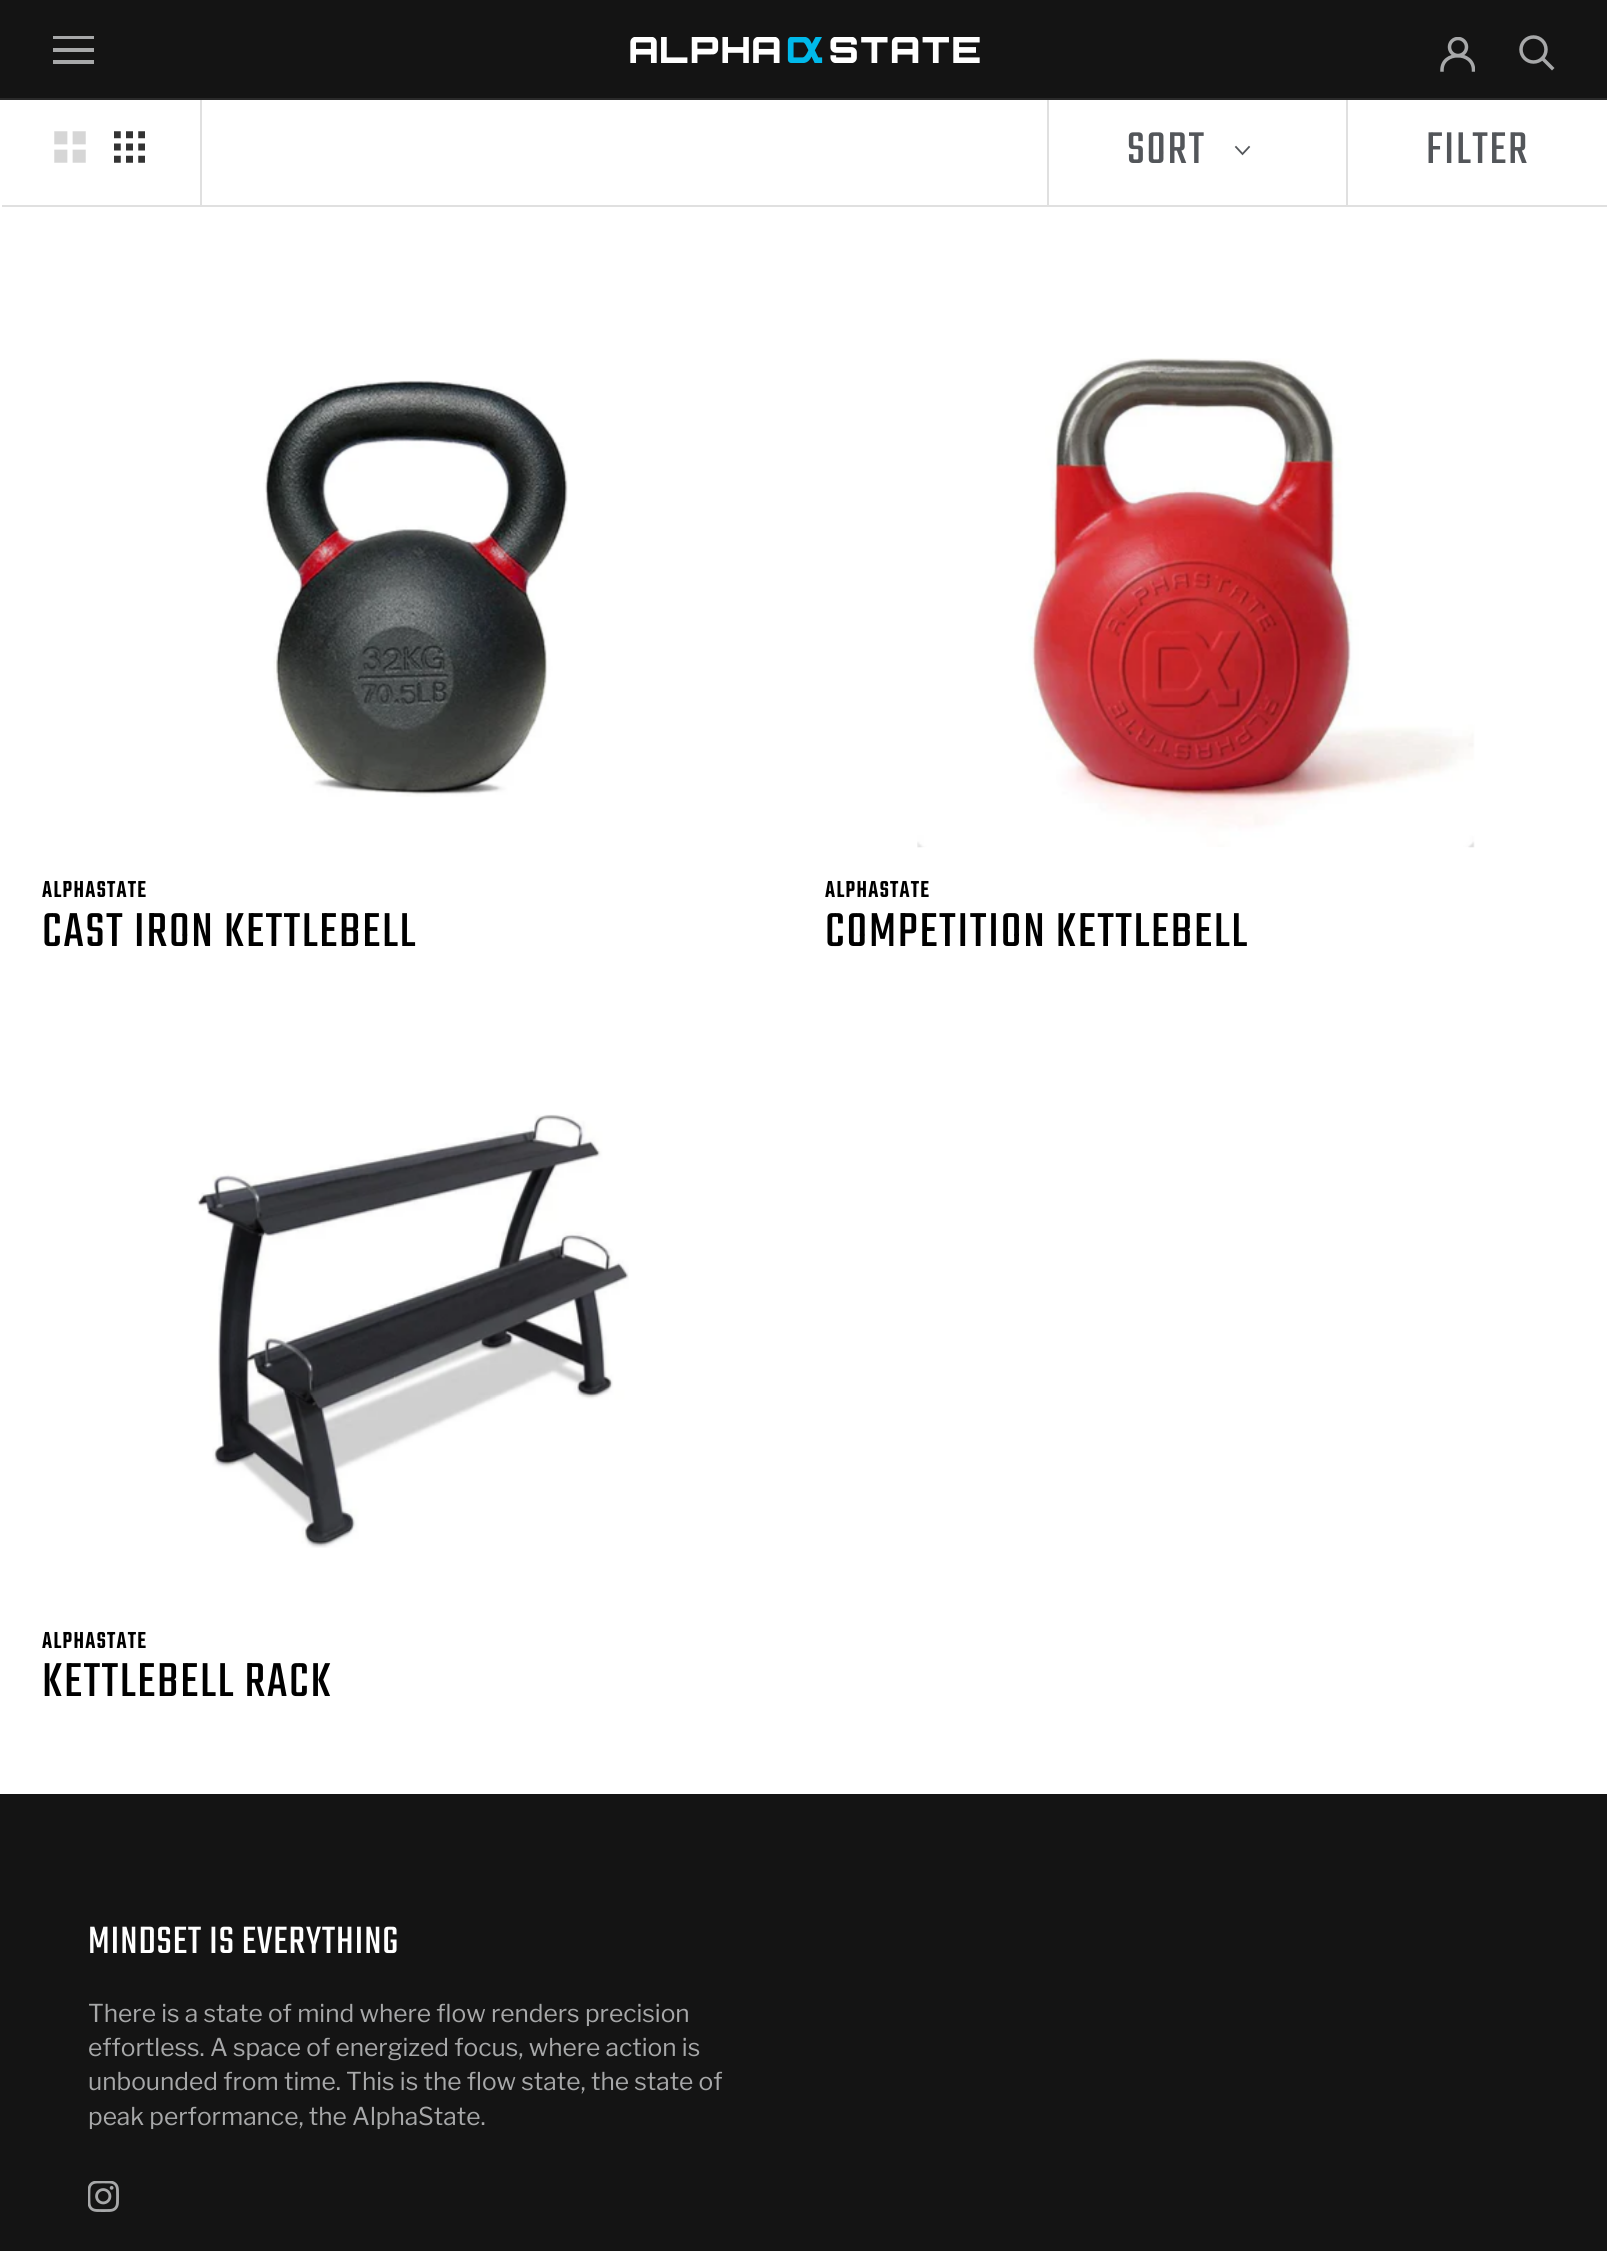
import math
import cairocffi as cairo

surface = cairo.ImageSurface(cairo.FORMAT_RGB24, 1607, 2251)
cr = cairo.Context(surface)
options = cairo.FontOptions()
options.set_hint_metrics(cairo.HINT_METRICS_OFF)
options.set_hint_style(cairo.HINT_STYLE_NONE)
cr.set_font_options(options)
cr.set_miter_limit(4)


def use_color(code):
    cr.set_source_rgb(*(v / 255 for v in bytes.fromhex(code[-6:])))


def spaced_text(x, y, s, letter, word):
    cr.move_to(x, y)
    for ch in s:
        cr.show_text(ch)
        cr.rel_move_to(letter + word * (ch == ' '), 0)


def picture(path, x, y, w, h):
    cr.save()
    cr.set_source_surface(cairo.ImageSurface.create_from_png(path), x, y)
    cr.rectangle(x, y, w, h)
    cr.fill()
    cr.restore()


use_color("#ffffff")
cr.paint()
use_color("#141414")
cr.rectangle(0, 0, 1607, 98)
cr.fill()
use_color("#2a2a2a")
cr.rectangle(0, 98, 1607, 2)
cr.fill()
cr.save()
cr.rectangle(53, 35, 42, 30)
cr.clip()
use_color("#a7a8a9")
cr.new_path()
cr.move_to(52, 64)
cr.line_to(52, 60)
cr.line_to(94, 60)
cr.line_to(94, 64)
cr.close_path()
cr.move_to(52, 48)
cr.line_to(94, 48)
cr.line_to(94, 52)
cr.line_to(52, 52)
cr.close_path()
cr.move_to(52, 36)
cr.line_to(94, 36)
cr.line_to(94, 39)
cr.line_to(52, 39)
cr.close_path()
cr.fill()
cr.restore()
picture("img1.png", 630, 37, 350, 26)
cr.save()
cr.rectangle(1440, 37, 35, 35)
cr.clip()
cr.new_path()
cr.move_to(1442, 70)
cr.curve_to(1442, 51, 1473.5, 51, 1473.5, 70)
use_color("#a7a8a9")
cr.set_line_width(3.5)
cr.set_line_cap(cairo.LINE_CAP_SQUARE)
cr.stroke()
cr.arc(1458, 47, 8.5, 0, 2 * math.pi)
cr.set_line_cap(cairo.LINE_CAP_BUTT)
cr.stroke()
cr.restore()
cr.new_path()
cr.move_to(1552, 68)
cr.line_to(1542.5, 58.5)
use_color("#a7a8a9")
cr.set_line_width(3.5)
cr.set_line_cap(cairo.LINE_CAP_SQUARE)
cr.stroke()
cr.arc(1533.5, 49.5, 12.5, 0, 2 * math.pi)
cr.set_line_cap(cairo.LINE_CAP_BUTT)
cr.stroke()
use_color("#e0e0e0")
cr.new_path()
cr.move_to(2, 205)
cr.line_to(2, 207)
cr.line_to(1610, 207)
cr.line_to(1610, 102)
cr.line_to(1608, 102)
cr.line_to(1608, 205)
cr.close_path()
cr.fill()
cr.rectangle(200, 100, 2, 105)
cr.fill()
picture("img2.png", 54, 131, 32, 32)
picture("img3.png", 114, 131, 31, 32)
cr.rectangle(1047, 100, 2, 105)
cr.fill()
cr.select_font_face("Teko")
cr.set_font_size(49)
use_color("#53565a")
spaced_text(1127, 163, "SORT", 1.75, 0)
cr.new_path()
cr.move_to(1249, 147)
cr.line_to(1242.5, 154)
cr.line_to(1236, 147)
cr.set_line_width(1.8)
cr.set_line_cap(cairo.LINE_CAP_SQUARE)
cr.stroke()
use_color("#e0e0e0")
cr.rectangle(1346, 100, 2, 105)
cr.fill()
use_color("#53565a")
spaced_text(1426, 163, "FILTER", 1.75, 0)
picture("img4.png", 263, 380, 305, 417)
cr.select_font_face("Teko", cairo.FONT_SLANT_NORMAL, cairo.FONT_WEIGHT_BOLD)
cr.set_font_size(24.5)
use_color("#000000")
spaced_text(42, 897, "ALPHASTATE", 1.75, 0)
cr.select_font_face("Teko")
cr.set_font_size(52.5)
spaced_text(42, 946, "CAST IRON KETTLEBELL", 1.75, 0)
picture("img5.png", 917, 358, 558, 490)
cr.select_font_face("Teko", cairo.FONT_SLANT_NORMAL, cairo.FONT_WEIGHT_BOLD)
cr.set_font_size(24.5)
spaced_text(825, 897, "ALPHASTATE", 1.75, 0)
cr.select_font_face("Teko")
cr.set_font_size(52.5)
spaced_text(825, 946, "COMPETITION KETTLEBELL", 1.75, 0)
picture("img6.png", 197, 1114, 432, 434)
cr.select_font_face("Teko", cairo.FONT_SLANT_NORMAL, cairo.FONT_WEIGHT_BOLD)
cr.set_font_size(24.5)
spaced_text(42, 1648, "ALPHASTATE", 1.75, 0)
cr.select_font_face("Teko")
cr.set_font_size(52.5)
spaced_text(42, 1696, "KETTLEBELL RACK", 1.75, 0)
use_color("#141414")
cr.rectangle(0, 1794, 1607, 457)
cr.fill()
cr.set_font_size(42)
use_color("#ffffff")
spaced_text(88, 1953, "MINDSET IS EVERYTHING", 0.9, 0)
cr.select_font_face("Libre Franklin")
cr.set_font_size(24.5)
use_color("#a7a8a9")
cr.move_to(88, 2022)
cr.show_text("There is a state of mind where flow renders precision")
cr.move_to(88, 2056)
cr.show_text("effortless. A space of energized focus, where action is")
cr.move_to(88, 2090)
cr.show_text("unbounded from time. This is the flow state, the state of")
cr.move_to(88, 2125)
cr.show_text("peak performance, the AlphaState.")
picture("img7.png", 88, 2181, 31, 31)
surface.write_to_png("result.png")
